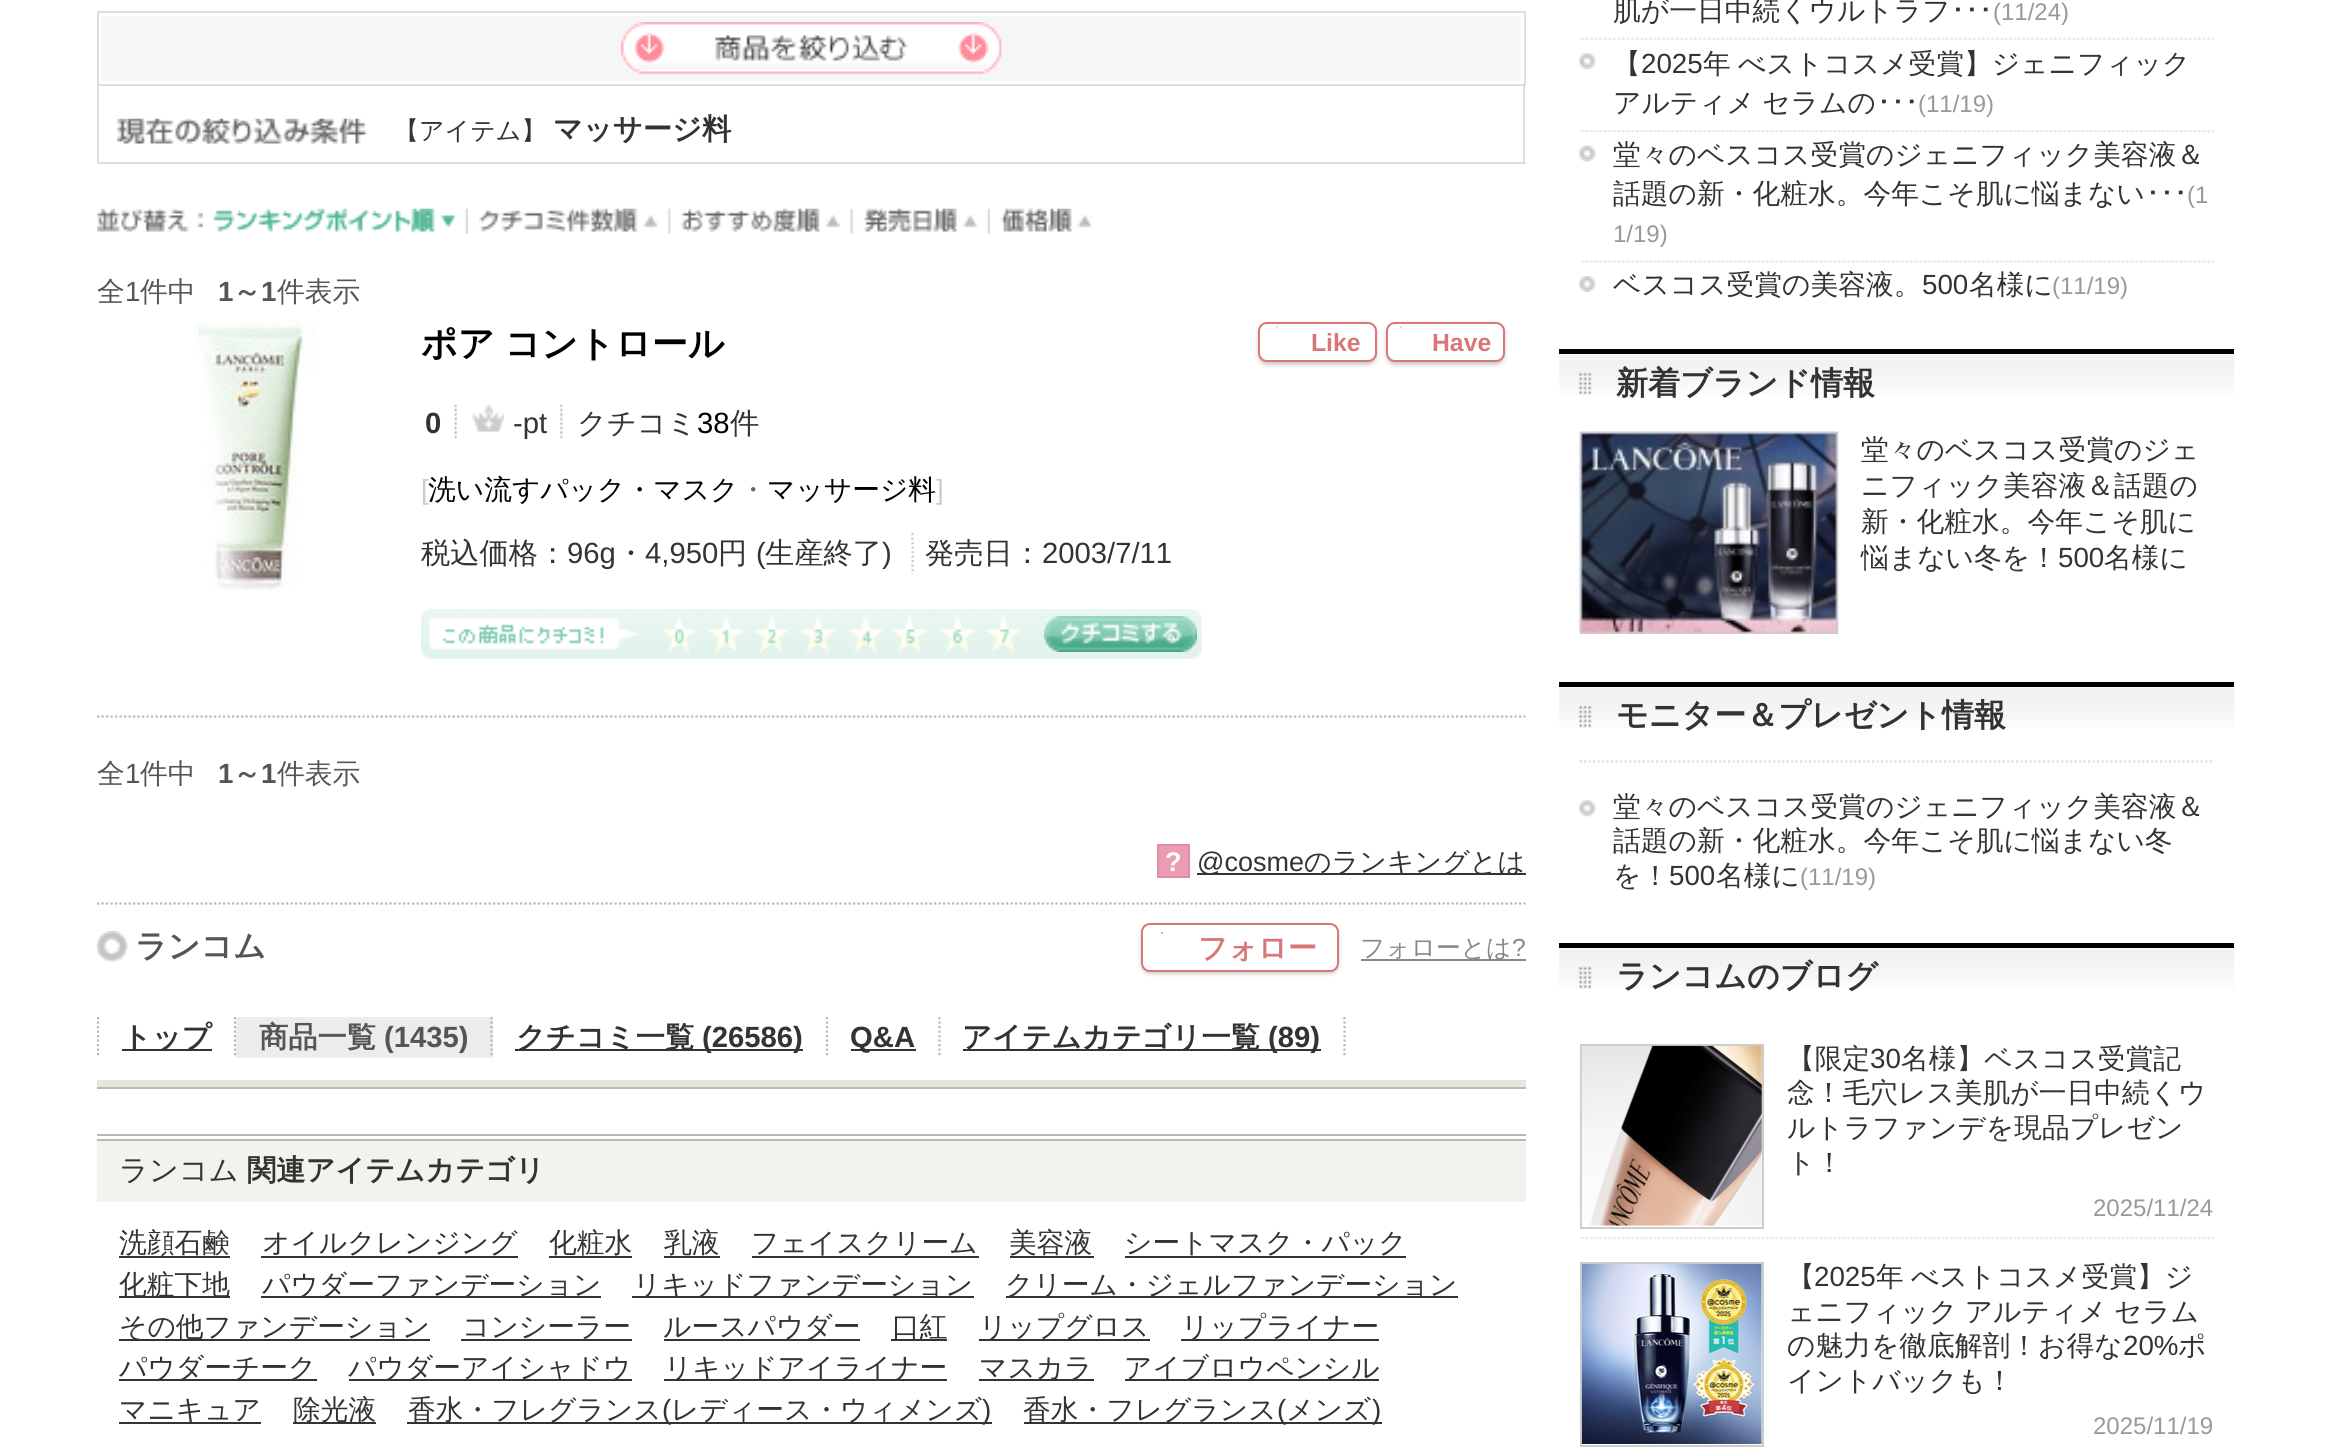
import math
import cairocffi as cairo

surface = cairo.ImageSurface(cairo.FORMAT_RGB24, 2331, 1449)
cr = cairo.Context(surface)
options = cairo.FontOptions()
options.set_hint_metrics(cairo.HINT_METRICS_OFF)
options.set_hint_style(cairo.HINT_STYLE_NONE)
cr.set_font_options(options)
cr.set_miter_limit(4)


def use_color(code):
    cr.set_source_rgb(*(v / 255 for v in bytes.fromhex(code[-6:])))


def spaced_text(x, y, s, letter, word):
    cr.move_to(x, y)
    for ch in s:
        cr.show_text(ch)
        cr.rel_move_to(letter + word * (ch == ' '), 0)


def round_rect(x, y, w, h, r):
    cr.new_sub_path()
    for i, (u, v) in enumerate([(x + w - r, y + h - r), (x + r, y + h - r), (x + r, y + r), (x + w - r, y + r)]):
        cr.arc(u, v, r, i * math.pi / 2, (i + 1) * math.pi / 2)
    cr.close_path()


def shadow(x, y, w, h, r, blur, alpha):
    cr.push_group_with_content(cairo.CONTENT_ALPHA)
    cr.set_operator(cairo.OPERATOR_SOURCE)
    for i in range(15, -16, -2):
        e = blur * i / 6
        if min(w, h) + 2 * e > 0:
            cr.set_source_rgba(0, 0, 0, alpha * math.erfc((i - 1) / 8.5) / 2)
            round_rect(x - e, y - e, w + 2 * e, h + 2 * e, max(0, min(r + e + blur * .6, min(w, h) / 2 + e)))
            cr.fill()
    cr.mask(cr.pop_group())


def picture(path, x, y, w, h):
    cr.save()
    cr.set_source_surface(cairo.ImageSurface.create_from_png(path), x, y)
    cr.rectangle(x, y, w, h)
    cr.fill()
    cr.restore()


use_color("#ffffff")
cr.paint()
cr.rectangle(98, 12, 1427, 73)
use_color("#dddddd")
cr.stroke()
use_color("#f6f6f6")
cr.rectangle(101, 16, 1420, 65)
cr.fill()
picture("img1.png", 621, 22, 381, 52)
use_color("#dddddd")
cr.rectangle(1523, 86, 2, 78)
cr.fill()
cr.rectangle(97, 162, 1429, 2)
cr.fill()
cr.rectangle(97, 86, 2, 78)
cr.fill()
picture("img2.png", 117, 118, 250, 26)
cr.select_font_face("WenQuanYi Zen Hei Medium")
cr.set_font_size(25)
use_color("#333333")
cr.move_to(394, 139)
cr.show_text("【アイテム】")
cr.select_font_face("WenQuanYi Zen Hei", cairo.FONT_SLANT_NORMAL, cairo.FONT_WEIGHT_BOLD)
cr.set_font_size(29.25)
cr.move_to(553, 139)
cr.show_text("マッサージ料")
picture("img3.png", 97, 208, 107, 24)
picture("img4.png", 213, 208, 255, 26)
picture("img5.png", 213, 208, 255, 26)
picture("img6.png", 478, 208, 193, 26)
picture("img7.png", 478, 208, 193, 26)
picture("img8.png", 670, 208, 183, 26)
picture("img9.png", 681, 208, 172, 26)
picture("img10.png", 852, 208, 138, 26)
picture("img11.png", 863, 208, 127, 26)
picture("img12.png", 1000, 208, 92, 24)
picture("img13.png", 1001, 208, 90, 24)
cr.select_font_face("WenQuanYi Zen Hei Medium")
cr.set_font_size(27.75)
use_color("#555555")
cr.move_to(97, 301)
cr.show_text("全")
cr.select_font_face("Liberation Sans")
cr.move_to(125, 301)
cr.show_text("1")
cr.select_font_face("WenQuanYi Zen Hei Medium")
cr.move_to(140, 301)
cr.show_text("件中")
cr.select_font_face("Liberation Sans", cairo.FONT_SLANT_NORMAL, cairo.FONT_WEIGHT_BOLD)
cr.move_to(218, 301)
cr.show_text("1")
cr.select_font_face("WenQuanYi Zen Hei", cairo.FONT_SLANT_NORMAL, cairo.FONT_WEIGHT_BOLD)
cr.move_to(233, 301)
cr.show_text("～")
cr.select_font_face("Liberation Sans", cairo.FONT_SLANT_NORMAL, cairo.FONT_WEIGHT_BOLD)
cr.move_to(261, 301)
cr.show_text("1")
cr.select_font_face("WenQuanYi Zen Hei Medium")
cr.move_to(277, 301)
cr.show_text("件表示")
cr.new_path()
cr.move_to(97, 716.5)
cr.line_to(1525.5, 716.5)
use_color("#bdb8ae")
cr.set_line_width(2.2)
cr.set_dash([2.25, 2.25])
cr.stroke()
picture("img14.png", 194, 321, 121, 270)
cr.select_font_face("WenQuanYi Zen Hei", cairo.FONT_SLANT_NORMAL, cairo.FONT_WEIGHT_BOLD)
cr.set_font_size(36)
use_color("#000000")
spaced_text(421, 356, "ポア コントロール", 0, -1)
cr.select_font_face("Liberation Sans", cairo.FONT_SLANT_NORMAL, cairo.FONT_WEIGHT_BOLD)
cr.set_font_size(29.25)
use_color("#333333")
cr.move_to(425, 433)
cr.show_text("0")
picture("img15.png", 454, 404, 3, 35)
picture("img16.png", 472, 404, 32, 28)
cr.select_font_face("Liberation Sans")
cr.move_to(513, 433)
cr.show_text("-pt")
picture("img17.png", 560, 404, 3, 35)
cr.select_font_face("WenQuanYi Zen Hei Medium")
cr.move_to(577, 433)
cr.show_text("クチコミ")
cr.select_font_face("Liberation Sans")
use_color("#000000")
cr.move_to(697, 433)
cr.show_text("38")
cr.select_font_face("WenQuanYi Zen Hei Medium")
use_color("#333333")
cr.move_to(730, 433)
cr.show_text("件")
cr.select_font_face("Liberation Sans")
cr.set_font_size(27.75)
use_color("#cccccc")
cr.move_to(421, 499)
cr.show_text("[")
cr.select_font_face("WenQuanYi Zen Hei Medium")
use_color("#000000")
cr.move_to(428, 499)
cr.show_text("洗い流すパック・マスク")
use_color("#666666")
cr.move_to(739, 499)
cr.show_text("・")
use_color("#000000")
cr.move_to(767, 499)
cr.show_text("マッサージ料")
cr.select_font_face("Liberation Sans")
use_color("#cccccc")
cr.move_to(936, 499)
cr.show_text("]")
cr.select_font_face("WenQuanYi Zen Hei Medium")
cr.set_font_size(29.25)
use_color("#333333")
cr.move_to(421, 563)
cr.show_text("税込価格：")
cr.select_font_face("Liberation Sans")
cr.move_to(567, 563)
cr.show_text("96g")
cr.select_font_face("WenQuanYi Zen Hei Medium")
cr.move_to(616, 563)
cr.show_text("・")
cr.select_font_face("Liberation Sans")
cr.move_to(645, 563)
cr.show_text("4,950")
cr.select_font_face("WenQuanYi Zen Hei Medium")
cr.move_to(718, 563)
cr.show_text("円")
cr.select_font_face("Liberation Sans")
cr.move_to(756, 563)
cr.show_text("(")
cr.select_font_face("WenQuanYi Zen Hei Medium")
cr.move_to(765, 563)
cr.show_text("生産終了")
cr.select_font_face("Liberation Sans")
cr.move_to(882, 563)
cr.show_text(")")
cr.new_path()
cr.move_to(912.5, 533)
cr.line_to(912.5, 574)
use_color("#cccccc")
cr.stroke()
cr.select_font_face("WenQuanYi Zen Hei Medium")
use_color("#333333")
cr.move_to(925, 563)
cr.show_text("発売日：")
cr.select_font_face("Liberation Sans")
cr.move_to(1042, 563)
cr.show_text("2003/7/11")
picture("img18.png", 421, 609, 781, 50)
picture("img19.png", 661, 612, 39, 44)
picture("img20.png", 707, 612, 37, 44)
picture("img21.png", 751, 612, 41, 44)
picture("img22.png", 800, 615, 39, 41)
picture("img23.png", 846, 612, 41, 44)
picture("img24.png", 891, 612, 40, 44)
picture("img25.png", 939, 612, 37, 44)
picture("img26.png", 983, 612, 41, 44)
picture("img27.png", 1044, 616, 153, 36)
use_color("#000000")
shadow(1258, 324, 119, 41, 9, 2, 0.2)
use_color("#ffffff")
round_rect(1259, 323, 117, 38, 8)
cr.fill_preserve()
use_color("#d97777")
cr.set_line_width(2)
cr.set_dash([])
cr.stroke()
picture("img28.png", 1276, 326, 2, 3)
cr.select_font_face("Liberation Sans", cairo.FONT_SLANT_NORMAL, cairo.FONT_WEIGHT_BOLD)
cr.set_font_size(24.75)
cr.move_to(1311, 351)
cr.show_text("Like")
use_color("#000000")
shadow(1386, 324, 119, 41, 9, 2, 0.2)
use_color("#ffffff")
round_rect(1387, 323, 117, 38, 8)
cr.fill_preserve()
use_color("#d97777")
cr.stroke()
picture("img29.png", 1400, 326, 2, 3)
cr.move_to(1432, 351)
cr.show_text("Have")
cr.select_font_face("WenQuanYi Zen Hei Medium")
cr.set_font_size(27.75)
use_color("#555555")
cr.move_to(97, 783)
cr.show_text("全")
cr.select_font_face("Liberation Sans")
cr.move_to(125, 783)
cr.show_text("1")
cr.select_font_face("WenQuanYi Zen Hei Medium")
cr.move_to(140, 783)
cr.show_text("件中")
cr.select_font_face("Liberation Sans", cairo.FONT_SLANT_NORMAL, cairo.FONT_WEIGHT_BOLD)
cr.move_to(218, 783)
cr.show_text("1")
cr.select_font_face("WenQuanYi Zen Hei", cairo.FONT_SLANT_NORMAL, cairo.FONT_WEIGHT_BOLD)
cr.move_to(233, 783)
cr.show_text("～")
cr.select_font_face("Liberation Sans", cairo.FONT_SLANT_NORMAL, cairo.FONT_WEIGHT_BOLD)
cr.move_to(261, 783)
cr.show_text("1")
cr.select_font_face("WenQuanYi Zen Hei Medium")
cr.move_to(277, 783)
cr.show_text("件表示")
use_color("#ea9cb2")
cr.rectangle(1158, 845, 31, 32)
cr.fill_preserve()
use_color("#df8da4")
cr.stroke()
cr.select_font_face("Liberation Sans", cairo.FONT_SLANT_NORMAL, cairo.FONT_WEIGHT_BOLD)
cr.set_font_size(27)
use_color("#ffffff")
cr.move_to(1165, 871)
cr.show_text("?")
use_color("#333333")
cr.rectangle(1197, 873, 329, 2)
cr.fill()
cr.select_font_face("Liberation Sans")
cr.move_to(1197, 871)
cr.show_text("@cosme")
cr.select_font_face("WenQuanYi Zen Hei Medium")
cr.move_to(1304, 871)
cr.show_text("のランキングとは")
cr.new_path()
cr.move_to(97, 903.5)
cr.line_to(1525.5, 903.5)
use_color("#bdb8ad")
cr.set_line_width(2.2)
cr.set_dash([2.25, 2.25])
cr.stroke()
cr.rectangle(97, 1087, 1429, 2)
cr.fill()
picture("img30.png", 97, 931, 32, 32)
cr.select_font_face("WenQuanYi Zen Hei", cairo.FONT_SLANT_NORMAL, cairo.FONT_WEIGHT_BOLD)
cr.set_font_size(32)
use_color("#555555")
cr.move_to(135, 957)
cr.show_text("ランコム")
use_color("#000000")
shadow(1141, 925, 198, 49, 9, 2, 0.2)
use_color("#ffffff")
round_rect(1142, 924, 196, 47, 8)
cr.fill_preserve()
use_color("#d97777")
cr.set_line_width(2)
cr.set_dash([])
cr.stroke()
picture("img31.png", 1161, 932, 3, 2)
cr.set_font_size(29.25)
cr.move_to(1198, 958)
cr.show_text("フォロー")
use_color("#888888")
cr.rectangle(1361, 959, 165, 2)
cr.fill()
cr.select_font_face("WenQuanYi Zen Hei Medium")
cr.set_font_size(24.75)
cr.move_to(1360, 956)
cr.show_text("フォローとは")
cr.select_font_face("Liberation Sans")
cr.move_to(1512, 956)
cr.show_text("?")
use_color("#e8e5e0")
cr.rectangle(97, 1080, 1429, 7)
cr.fill()
cr.new_path()
cr.move_to(235, 1017)
cr.line_to(235, 1057.5)
use_color("#bdb8ad")
cr.set_line_width(2.2)
cr.set_dash([2.25, 2.25])
cr.stroke()
cr.save()
cr.rectangle(97, 0, 1429, 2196)
cr.clip()
cr.new_path()
cr.move_to(98, 1017)
cr.line_to(98, 1057.5)
cr.stroke()
cr.restore()
use_color("#333333")
cr.rectangle(122, 1049, 90, 2)
cr.fill()
cr.select_font_face("WenQuanYi Zen Hei", cairo.FONT_SLANT_NORMAL, cairo.FONT_WEIGHT_BOLD)
cr.set_font_size(29.25)
cr.move_to(122, 1047)
cr.show_text("トップ")
use_color("#ececec")
cr.rectangle(236, 1017, 257, 41)
cr.fill()
cr.new_path()
cr.move_to(491.5, 1017)
cr.line_to(491.5, 1057.5)
use_color("#bdb8ad")
cr.stroke()
use_color("#555555")
cr.move_to(259, 1047)
cr.show_text("商品一覧")
cr.select_font_face("Liberation Sans", cairo.FONT_SLANT_NORMAL, cairo.FONT_WEIGHT_BOLD)
cr.move_to(384, 1047)
cr.show_text("(1435)")
cr.new_path()
cr.move_to(827, 1017)
cr.line_to(827, 1057.5)
use_color("#bdb8ad")
cr.stroke()
use_color("#333333")
cr.rectangle(515, 1049, 288, 2)
cr.fill()
cr.select_font_face("WenQuanYi Zen Hei", cairo.FONT_SLANT_NORMAL, cairo.FONT_WEIGHT_BOLD)
cr.move_to(516, 1047)
cr.show_text("クチコミ一覧")
cr.select_font_face("Liberation Sans", cairo.FONT_SLANT_NORMAL, cairo.FONT_WEIGHT_BOLD)
cr.move_to(702, 1047)
cr.show_text("(26586)")
cr.new_path()
cr.move_to(939.5, 1017)
cr.line_to(939.5, 1057.5)
use_color("#bdb8ad")
cr.stroke()
use_color("#333333")
cr.rectangle(851, 1049, 65, 2)
cr.fill()
cr.move_to(850, 1047)
cr.show_text("Q&A")
cr.new_path()
cr.move_to(1344.5, 1017)
cr.line_to(1344.5, 1057.5)
use_color("#bdb8ad")
cr.stroke()
use_color("#333333")
cr.rectangle(963, 1049, 358, 2)
cr.fill()
cr.select_font_face("WenQuanYi Zen Hei", cairo.FONT_SLANT_NORMAL, cairo.FONT_WEIGHT_BOLD)
cr.move_to(962, 1047)
cr.show_text("アイテムカテゴリ一覧")
cr.select_font_face("Liberation Sans", cairo.FONT_SLANT_NORMAL, cairo.FONT_WEIGHT_BOLD)
cr.move_to(1268, 1047)
cr.show_text("(89)")
use_color("#bdb8ad")
cr.rectangle(97, 1134, 1429, 2)
cr.fill()
cr.rectangle(97, 1139, 1429, 2)
cr.fill()
use_color("#f4f2ec")
cr.rectangle(97, 1141, 1429, 61)
cr.fill()
cr.select_font_face("WenQuanYi Zen Hei Medium")
use_color("#333333")
cr.move_to(119, 1180)
cr.show_text("ランコム")
cr.select_font_face("WenQuanYi Zen Hei", cairo.FONT_SLANT_NORMAL, cairo.FONT_WEIGHT_BOLD)
cr.move_to(247, 1180)
cr.show_text("関連アイテムカテゴリ")
cr.rectangle(119, 1256, 111, 2)
cr.fill()
cr.select_font_face("WenQuanYi Zen Hei Medium")
cr.set_font_size(27.75)
cr.move_to(119, 1252)
cr.show_text("洗顔石鹸")
cr.move_to(262, 1252)
cr.show_text("オイルクレンジング")
cr.rectangle(261, 1256, 257, 2)
cr.fill()
cr.move_to(549, 1252)
cr.show_text("化粧水")
cr.rectangle(549, 1256, 83, 2)
cr.fill()
cr.move_to(664, 1252)
cr.show_text("乳液")
cr.rectangle(664, 1256, 56, 2)
cr.fill()
cr.move_to(751, 1252)
cr.show_text("フェイスクリーム")
cr.rectangle(752, 1256, 227, 2)
cr.fill()
cr.move_to(1009, 1252)
cr.show_text("美容液")
cr.rectangle(1010, 1256, 84, 2)
cr.fill()
cr.move_to(1124, 1252)
cr.show_text("シートマスク・パック")
cr.rectangle(1125, 1256, 281, 2)
cr.fill()
cr.rectangle(119, 1296, 111, 2)
cr.fill()
cr.move_to(119, 1294)
cr.show_text("化粧下地")
cr.rectangle(261, 1296, 340, 2)
cr.fill()
cr.move_to(262, 1294)
cr.show_text("パウダーファンデーション")
cr.rectangle(632, 1296, 342, 2)
cr.fill()
cr.move_to(633, 1294)
cr.show_text("リキッドファンデーション")
cr.rectangle(1006, 1296, 452, 2)
cr.fill()
cr.move_to(1005, 1294)
cr.show_text("クリーム・ジェルファンデーション")
cr.rectangle(119, 1339, 311, 2)
cr.fill()
cr.move_to(119, 1336)
cr.show_text("その他ファンデーション")
cr.rectangle(461, 1339, 171, 2)
cr.fill()
cr.move_to(462, 1336)
cr.show_text("コンシーラー")
cr.rectangle(664, 1339, 196, 2)
cr.fill()
cr.move_to(663, 1336)
cr.show_text("ルースパウダー")
cr.rectangle(891, 1339, 56, 2)
cr.fill()
cr.move_to(892, 1336)
cr.show_text("口紅")
cr.rectangle(979, 1339, 171, 2)
cr.fill()
cr.move_to(979, 1336)
cr.show_text("リップグロス")
cr.rectangle(1181, 1339, 198, 2)
cr.fill()
cr.move_to(1181, 1336)
cr.show_text("リップライナー")
cr.rectangle(119, 1379, 198, 2)
cr.fill()
cr.move_to(119, 1377)
cr.show_text("パウダーチーク")
cr.rectangle(349, 1379, 283, 2)
cr.fill()
cr.move_to(348, 1377)
cr.show_text("パウダーアイシャドウ")
cr.rectangle(664, 1379, 283, 2)
cr.fill()
cr.move_to(664, 1377)
cr.show_text("リキッドアイライナー")
cr.rectangle(979, 1379, 115, 2)
cr.fill()
cr.move_to(979, 1377)
cr.show_text("マスカラ")
cr.rectangle(1125, 1379, 254, 2)
cr.fill()
cr.move_to(1124, 1377)
cr.show_text("アイブロウペンシル")
cr.rectangle(119, 1422, 142, 2)
cr.fill()
cr.move_to(119, 1419)
cr.show_text("マニキュア")
cr.rectangle(293, 1422, 83, 2)
cr.fill()
cr.move_to(293, 1419)
cr.show_text("除光液")
cr.rectangle(407, 1422, 585, 2)
cr.fill()
cr.move_to(408, 1419)
cr.show_text("香水・フレグランス")
cr.select_font_face("Liberation Sans")
cr.move_to(662, 1419)
cr.show_text("(")
cr.select_font_face("WenQuanYi Zen Hei Medium")
cr.move_to(671, 1419)
cr.show_text("レディース・ウィメンズ")
cr.select_font_face("Liberation Sans")
cr.move_to(982, 1419)
cr.show_text(")")
cr.rectangle(1024, 1422, 358, 2)
cr.fill()
cr.select_font_face("WenQuanYi Zen Hei Medium")
cr.move_to(1023, 1419)
cr.show_text("香水・フレグランス")
cr.select_font_face("Liberation Sans")
cr.move_to(1277, 1419)
cr.show_text("(")
cr.select_font_face("WenQuanYi Zen Hei Medium")
cr.move_to(1286, 1419)
cr.show_text("メンズ")
cr.select_font_face("Liberation Sans")
cr.move_to(1372, 1419)
cr.show_text(")")
cr.select_font_face("WenQuanYi Zen Hei Medium")
cr.move_to(1613, 20)
cr.show_text("肌が一日中続くウルトラフ")
cr.select_font_face("IPAPGothic")
cr.move_to(1951, 20)
cr.show_text("･･･")
cr.select_font_face("Liberation Sans")
cr.set_font_size(24)
use_color("#999999")
cr.move_to(1993, 20)
cr.show_text("(11/24)")
picture("img32.png", 1579, 37, 635, 3)
picture("img33.png", 1579, 53, 17, 17)
cr.select_font_face("WenQuanYi Zen Hei Medium")
cr.set_font_size(27.75)
use_color("#333333")
cr.move_to(1613, 73)
cr.show_text("【")
cr.select_font_face("Liberation Sans")
cr.move_to(1641, 73)
cr.show_text("2025")
cr.select_font_face("WenQuanYi Zen Hei Medium")
spaced_text(1703, 73, "年 べストコスメ受賞】ジェニフィック", 0, -1)
spaced_text(1613, 112, "アルティメ セラムの", 0, -1)
cr.select_font_face("IPAPGothic")
cr.move_to(1877, 112)
cr.show_text("･･･")
cr.select_font_face("Liberation Sans")
cr.set_font_size(24)
use_color("#999999")
cr.move_to(1918, 112)
cr.show_text("(11/19)")
picture("img34.png", 1579, 130, 635, 3)
picture("img35.png", 1579, 145, 17, 17)
cr.select_font_face("WenQuanYi Zen Hei Medium")
cr.set_font_size(27.75)
use_color("#333333")
cr.move_to(1613, 164)
cr.show_text("堂々のベスコス受賞のジェニフィック美容液＆")
cr.move_to(1613, 203)
cr.show_text("話題の新・化粧水。今年こそ肌に悩まない")
cr.select_font_face("IPAPGothic")
cr.move_to(2146, 203)
cr.show_text("･･･")
cr.select_font_face("Liberation Sans")
cr.set_font_size(24)
use_color("#999999")
cr.move_to(2187, 203)
cr.show_text("(1")
cr.move_to(1613, 242)
cr.show_text("1/19)")
picture("img36.png", 1579, 260, 635, 3)
picture("img37.png", 1579, 276, 17, 16)
cr.select_font_face("WenQuanYi Zen Hei Medium")
cr.set_font_size(27.75)
use_color("#333333")
cr.move_to(1613, 294)
cr.show_text("ベスコス受賞の美容液。")
cr.select_font_face("Liberation Sans")
cr.move_to(1922, 294)
cr.show_text("500")
cr.select_font_face("WenQuanYi Zen Hei Medium")
cr.move_to(1969, 294)
cr.show_text("名様に")
cr.select_font_face("Liberation Sans")
cr.set_font_size(24)
use_color("#999999")
cr.move_to(2052, 294)
cr.show_text("(11/19)")
picture("img38.png", 1559, 354, 676, 41)
use_color("#000000")
cr.rectangle(1559, 349, 675, 5)
cr.fill()
cr.select_font_face("WenQuanYi Zen Hei", cairo.FONT_SLANT_NORMAL, cairo.FONT_WEIGHT_BOLD)
cr.set_font_size(32)
use_color("#333333")
cr.move_to(1616, 394)
cr.show_text("新着ブランド情報")
picture("img39.png", 1579, 431, 260, 203)
cr.select_font_face("WenQuanYi Zen Hei Medium")
cr.set_font_size(27.75)
cr.move_to(1861, 459)
cr.show_text("堂々のベスコス受賞のジェ")
cr.move_to(1861, 495)
cr.show_text("ニフィック美容液＆話題の")
cr.move_to(1861, 531)
cr.show_text("新・化粧水。今年こそ肌に")
cr.move_to(1861, 567)
cr.show_text("悩まない冬を！")
cr.select_font_face("Liberation Sans")
cr.move_to(2058, 567)
cr.show_text("500")
cr.select_font_face("WenQuanYi Zen Hei Medium")
cr.move_to(2104, 567)
cr.show_text("名様に")
picture("img38.png", 1559, 687, 676, 41)
use_color("#000000")
cr.rectangle(1559, 682, 675, 5)
cr.fill()
cr.select_font_face("WenQuanYi Zen Hei", cairo.FONT_SLANT_NORMAL, cairo.FONT_WEIGHT_BOLD)
cr.set_font_size(32)
use_color("#333333")
cr.move_to(1616, 726)
cr.show_text("モニター＆プレゼント情報")
cr.new_path()
cr.move_to(1579.5, 761.5)
cr.line_to(2214, 761.5)
use_color("#dddddd")
cr.stroke()
picture("img33.png", 1579, 800, 17, 17)
cr.select_font_face("WenQuanYi Zen Hei Medium")
cr.set_font_size(27.75)
use_color("#333333")
cr.move_to(1613, 816)
cr.show_text("堂々のベスコス受賞のジェニフィック美容液＆")
cr.move_to(1613, 850)
cr.show_text("話題の新・化粧水。今年こそ肌に悩まない冬")
cr.move_to(1613, 885)
cr.show_text("を！")
cr.select_font_face("Liberation Sans")
cr.move_to(1669, 885)
cr.show_text("500")
cr.select_font_face("WenQuanYi Zen Hei Medium")
cr.move_to(1716, 885)
cr.show_text("名様に")
cr.select_font_face("Liberation Sans")
cr.set_font_size(24)
use_color("#999999")
cr.move_to(1800, 885)
cr.show_text("(11/19)")
picture("img38.png", 1559, 948, 676, 41)
use_color("#000000")
cr.rectangle(1559, 943, 675, 5)
cr.fill()
cr.select_font_face("WenQuanYi Zen Hei", cairo.FONT_SLANT_NORMAL, cairo.FONT_WEIGHT_BOLD)
cr.set_font_size(32)
use_color("#333333")
cr.move_to(1616, 987)
cr.show_text("ランコムのブログ")
picture("img34.png", 1579, 1237, 635, 3)
cr.rectangle(1581, 1045, 182, 183)
use_color("#cccccc")
cr.set_line_width(2)
cr.set_dash([])
cr.stroke()
picture("img40.png", 1581, 1045, 181, 181)
cr.select_font_face("WenQuanYi Zen Hei Medium")
cr.set_font_size(27.75)
use_color("#333333")
cr.move_to(1787, 1068)
cr.show_text("【限定")
cr.select_font_face("Liberation Sans")
cr.move_to(1870, 1068)
cr.show_text("30")
cr.select_font_face("WenQuanYi Zen Hei Medium")
cr.move_to(1901, 1068)
cr.show_text("名様】ベスコス受賞記")
cr.move_to(1787, 1102)
cr.show_text("念！毛穴レス美肌が一日中続くウ")
cr.move_to(1787, 1137)
cr.show_text("ルトラファンデを現品プレゼン")
cr.move_to(1787, 1172)
cr.show_text("ト！")
cr.select_font_face("Liberation Sans")
cr.set_font_size(24)
use_color("#999999")
cr.move_to(2093, 1216)
cr.show_text("2025/11/24")
cr.rectangle(1581, 1263, 182, 183)
use_color("#cccccc")
cr.stroke()
picture("img41.png", 1581, 1264, 181, 180)
cr.select_font_face("WenQuanYi Zen Hei Medium")
cr.set_font_size(27.75)
use_color("#333333")
cr.move_to(1787, 1286)
cr.show_text("【")
cr.select_font_face("Liberation Sans")
cr.move_to(1814, 1286)
cr.show_text("2025")
cr.select_font_face("WenQuanYi Zen Hei Medium")
spaced_text(1876, 1286, "年 べストコスメ受賞】ジ", 0, -1)
spaced_text(1787, 1321, "ェニフィック アルティメ セラム", 0, -1)
cr.move_to(1787, 1355)
cr.show_text("の魅力を徹底解剖！お得な")
cr.select_font_face("Liberation Sans")
cr.move_to(2123, 1355)
cr.show_text("20%")
cr.select_font_face("WenQuanYi Zen Hei Medium")
cr.move_to(2178, 1355)
cr.show_text("ポ")
cr.move_to(1787, 1390)
cr.show_text("イントバックも！")
cr.select_font_face("Liberation Sans")
cr.set_font_size(24)
use_color("#999999")
cr.move_to(2093, 1434)
cr.show_text("2025/11/19")
surface.write_to_png("result.png")
